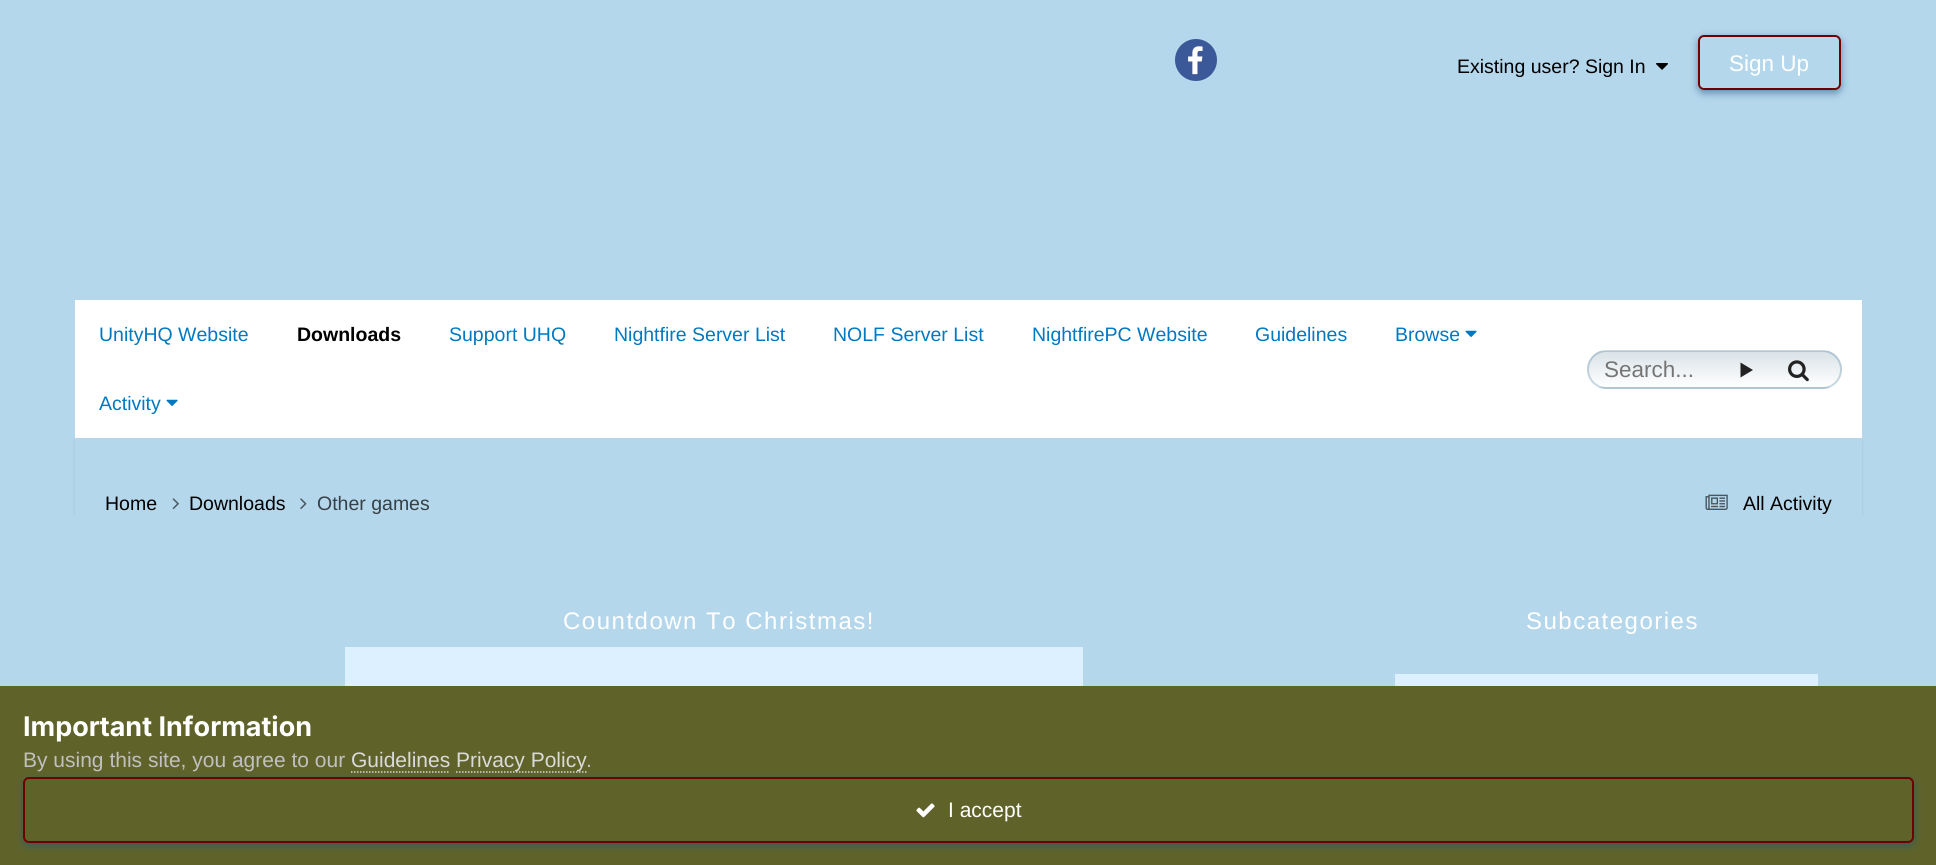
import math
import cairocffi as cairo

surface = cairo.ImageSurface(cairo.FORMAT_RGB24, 1936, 865)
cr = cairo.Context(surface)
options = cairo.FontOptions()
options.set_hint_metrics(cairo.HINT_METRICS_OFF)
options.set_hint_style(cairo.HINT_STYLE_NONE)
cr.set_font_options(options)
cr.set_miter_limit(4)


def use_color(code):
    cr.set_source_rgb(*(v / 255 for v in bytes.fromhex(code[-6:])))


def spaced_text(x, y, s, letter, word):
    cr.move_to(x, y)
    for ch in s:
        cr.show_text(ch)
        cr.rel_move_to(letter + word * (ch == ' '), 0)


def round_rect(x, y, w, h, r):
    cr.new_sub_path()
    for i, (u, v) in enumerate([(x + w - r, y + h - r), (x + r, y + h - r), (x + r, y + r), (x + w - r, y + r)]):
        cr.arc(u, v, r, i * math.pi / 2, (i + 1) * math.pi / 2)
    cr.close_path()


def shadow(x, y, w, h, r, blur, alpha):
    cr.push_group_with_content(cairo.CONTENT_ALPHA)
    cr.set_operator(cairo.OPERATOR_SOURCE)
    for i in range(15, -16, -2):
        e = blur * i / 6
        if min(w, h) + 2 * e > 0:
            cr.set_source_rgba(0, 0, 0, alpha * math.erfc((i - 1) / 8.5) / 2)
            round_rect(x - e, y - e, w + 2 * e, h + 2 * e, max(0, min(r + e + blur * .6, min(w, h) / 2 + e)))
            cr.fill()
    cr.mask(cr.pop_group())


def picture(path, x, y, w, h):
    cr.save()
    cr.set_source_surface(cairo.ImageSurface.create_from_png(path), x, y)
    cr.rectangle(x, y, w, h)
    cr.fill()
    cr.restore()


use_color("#b5d7ec")
cr.paint()
use_color("#3b5998")
cr.arc(1196, 60, 21, 0, 2 * math.pi)
cr.fill()
picture("img1.png", 1188, 46, 15, 29)
cr.select_font_face("Liberation Sans")
cr.set_font_size(19.5)
use_color("#000000")
cr.move_to(1457, 73)
cr.show_text("Existing user? Sign In")
picture("img2.png", 1656, 63, 12, 7)
cr.save()
cr.set_fill_rule(cairo.FILL_RULE_EVEN_ODD)
cr.new_path()
cr.move_to(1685, 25)
cr.line_to(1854, 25)
cr.line_to(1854, 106)
cr.line_to(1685, 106)
cr.close_path()
cr.move_to(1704, 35)
cr.line_to(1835, 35)
cr.curve_to(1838.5, 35, 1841, 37.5, 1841, 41)
cr.line_to(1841, 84)
cr.curve_to(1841, 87.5, 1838.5, 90, 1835, 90)
cr.line_to(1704, 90)
cr.curve_to(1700.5, 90, 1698, 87.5, 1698, 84)
cr.line_to(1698, 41)
cr.curve_to(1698, 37.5, 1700.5, 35, 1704, 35)
cr.close_path()
cr.clip()
use_color("#1e577b")
shadow(1698, 38, 143, 55, 6, 4, 0.6)
cr.restore()
round_rect(1699, 36, 141, 53, 5)
use_color("#700000")
cr.stroke()
cr.set_font_size(22.5)
use_color("#ffffff")
cr.move_to(1729, 71)
cr.show_text("Sign Up")
cr.rectangle(75, 300, 1787, 138)
cr.fill()
cr.set_font_size(19.5)
use_color("#0079c1")
cr.move_to(99, 341)
cr.show_text("UnityHQ Website")
cr.select_font_face("Liberation Sans", cairo.FONT_SLANT_NORMAL, cairo.FONT_WEIGHT_BOLD)
use_color("#000000")
cr.move_to(297, 341)
cr.show_text("Downloads")
cr.select_font_face("Liberation Sans")
use_color("#0079c1")
cr.move_to(449, 341)
cr.show_text("Support UHQ")
cr.move_to(614, 341)
cr.show_text("Nightfire Server List")
cr.move_to(833, 341)
cr.show_text("NOLF Server List")
cr.move_to(1032, 341)
cr.show_text("NightfirePC Website")
cr.move_to(1255, 341)
cr.show_text("Guidelines")
cr.move_to(1395, 341)
cr.show_text("Browse")
picture("img3.png", 1465, 330, 12, 7)
cr.move_to(99, 410)
cr.show_text("Activity")
picture("img3.png", 166, 399, 12, 7)
cr.save()
round_rect(1587, 350, 255, 39, 19.5)
cr.clip()
gradient = cairo.LinearGradient(1715, 351, 1715, 387)
gradient.add_color_stop_rgba(0, 0.851, 0.886, 0.906, 1)
gradient.add_color_stop_rgba(1, 1, 1, 1, 1)
cr.set_source(gradient)
cr.rectangle(1587, 351, 255, 36)
cr.fill()
gradient = cairo.LinearGradient(1715, 387, 1715, 423)
gradient.add_color_stop_rgba(0, 0.851, 0.886, 0.906, 1)
gradient.add_color_stop_rgba(1, 1, 1, 1, 1)
cr.set_source(gradient)
cr.rectangle(1598, 387, 233, 2)
cr.fill()
cr.restore()
round_rect(1588, 351, 253, 37, 18.5)
cr.set_source_rgba(0.306, 0.506, 0.627, 0.3)
cr.stroke()
cr.set_font_size(22.5)
use_color("#757575")
cr.move_to(1604, 377)
cr.show_text("Search...")
use_color("#222222")
cr.new_path()
cr.move_to(1740.5, 362.5)
cr.line_to(1753, 370)
cr.line_to(1740.5, 377.5)
cr.close_path()
cr.fill()
picture("img4.png", 1788, 360, 21, 22)
use_color("#000000")
shadow(75, 440, 1787, 75, 0, 1.5, 0.1)
use_color("#b5d7ec")
cr.rectangle(75, 438, 1787, 79)
cr.fill()
cr.set_font_size(19.5)
use_color("#000000")
cr.move_to(105, 510)
cr.show_text("Home")
picture("img5.png", 172, 498, 7, 12)
cr.move_to(189, 510)
cr.show_text("Downloads")
picture("img6.png", 300, 498, 7, 11)
use_color("#364147")
cr.move_to(317, 510)
cr.show_text("Other games")
picture("img7.png", 1705, 494, 23, 16)
use_color("#000000")
cr.move_to(1743, 510)
cr.show_text("All Activity")
cr.set_font_size(24)
use_color("#ffffff")
spaced_text(563, 629, "Countdown To Christmas!", 1.5, 0)
use_color("#ddf0ff")
cr.rectangle(345, 647, 738, 39)
cr.fill()
use_color("#ffffff")
spaced_text(1526, 629, "Subcategories", 1.5, 0)
use_color("#ddf0ff")
cr.rectangle(1395, 674, 423, 12)
cr.fill()
use_color("#5f632a")
cr.rectangle(0, 686, 1936, 179)
cr.fill()
cr.select_font_face("Inter", cairo.FONT_SLANT_NORMAL, cairo.FONT_WEIGHT_BOLD)
cr.set_font_size(27)
use_color("#ffffff")
cr.move_to(23, 736)
cr.show_text("Important Information")
cr.select_font_face("Liberation Sans")
cr.set_font_size(21)
use_color("#c0c0c0")
cr.move_to(23, 767)
cr.show_text("By using this site, you agree to our")
use_color("#dadada")
cr.move_to(351, 767)
cr.show_text("Guidelines")
cr.new_path()
cr.move_to(351, 772)
cr.line_to(450, 772)
cr.set_line_width(1.5)
cr.set_dash([1.5, 1.5])
cr.stroke()
cr.new_path()
cr.move_to(456, 772)
cr.line_to(586.5, 772)
cr.stroke()
cr.move_to(456, 767)
cr.show_text("Privacy Policy")
use_color("#c0c0c0")
cr.move_to(586, 767)
cr.show_text(".")
cr.save()
cr.set_fill_rule(cairo.FILL_RULE_EVEN_ODD)
cr.new_path()
cr.move_to(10, 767)
cr.line_to(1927, 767)
cr.line_to(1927, 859)
cr.line_to(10, 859)
cr.close_path()
cr.move_to(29, 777)
cr.line_to(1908, 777)
cr.curve_to(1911.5, 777, 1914, 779.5, 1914, 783)
cr.line_to(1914, 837)
cr.curve_to(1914, 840.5, 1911.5, 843, 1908, 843)
cr.line_to(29, 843)
cr.curve_to(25.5, 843, 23, 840.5, 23, 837)
cr.line_to(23, 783)
cr.curve_to(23, 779.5, 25.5, 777, 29, 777)
cr.close_path()
cr.clip()
use_color("#1e577b")
shadow(23, 780, 1891, 66, 6, 4, 0.6)
cr.restore()
round_rect(24, 778, 1889, 64, 5)
use_color("#700000")
cr.set_line_width(2)
cr.set_dash([])
cr.stroke()
picture("img8.png", 916, 803, 19, 15)
use_color("#ffffff")
cr.move_to(948, 817)
cr.show_text("I accept")
surface.write_to_png("result.png")
